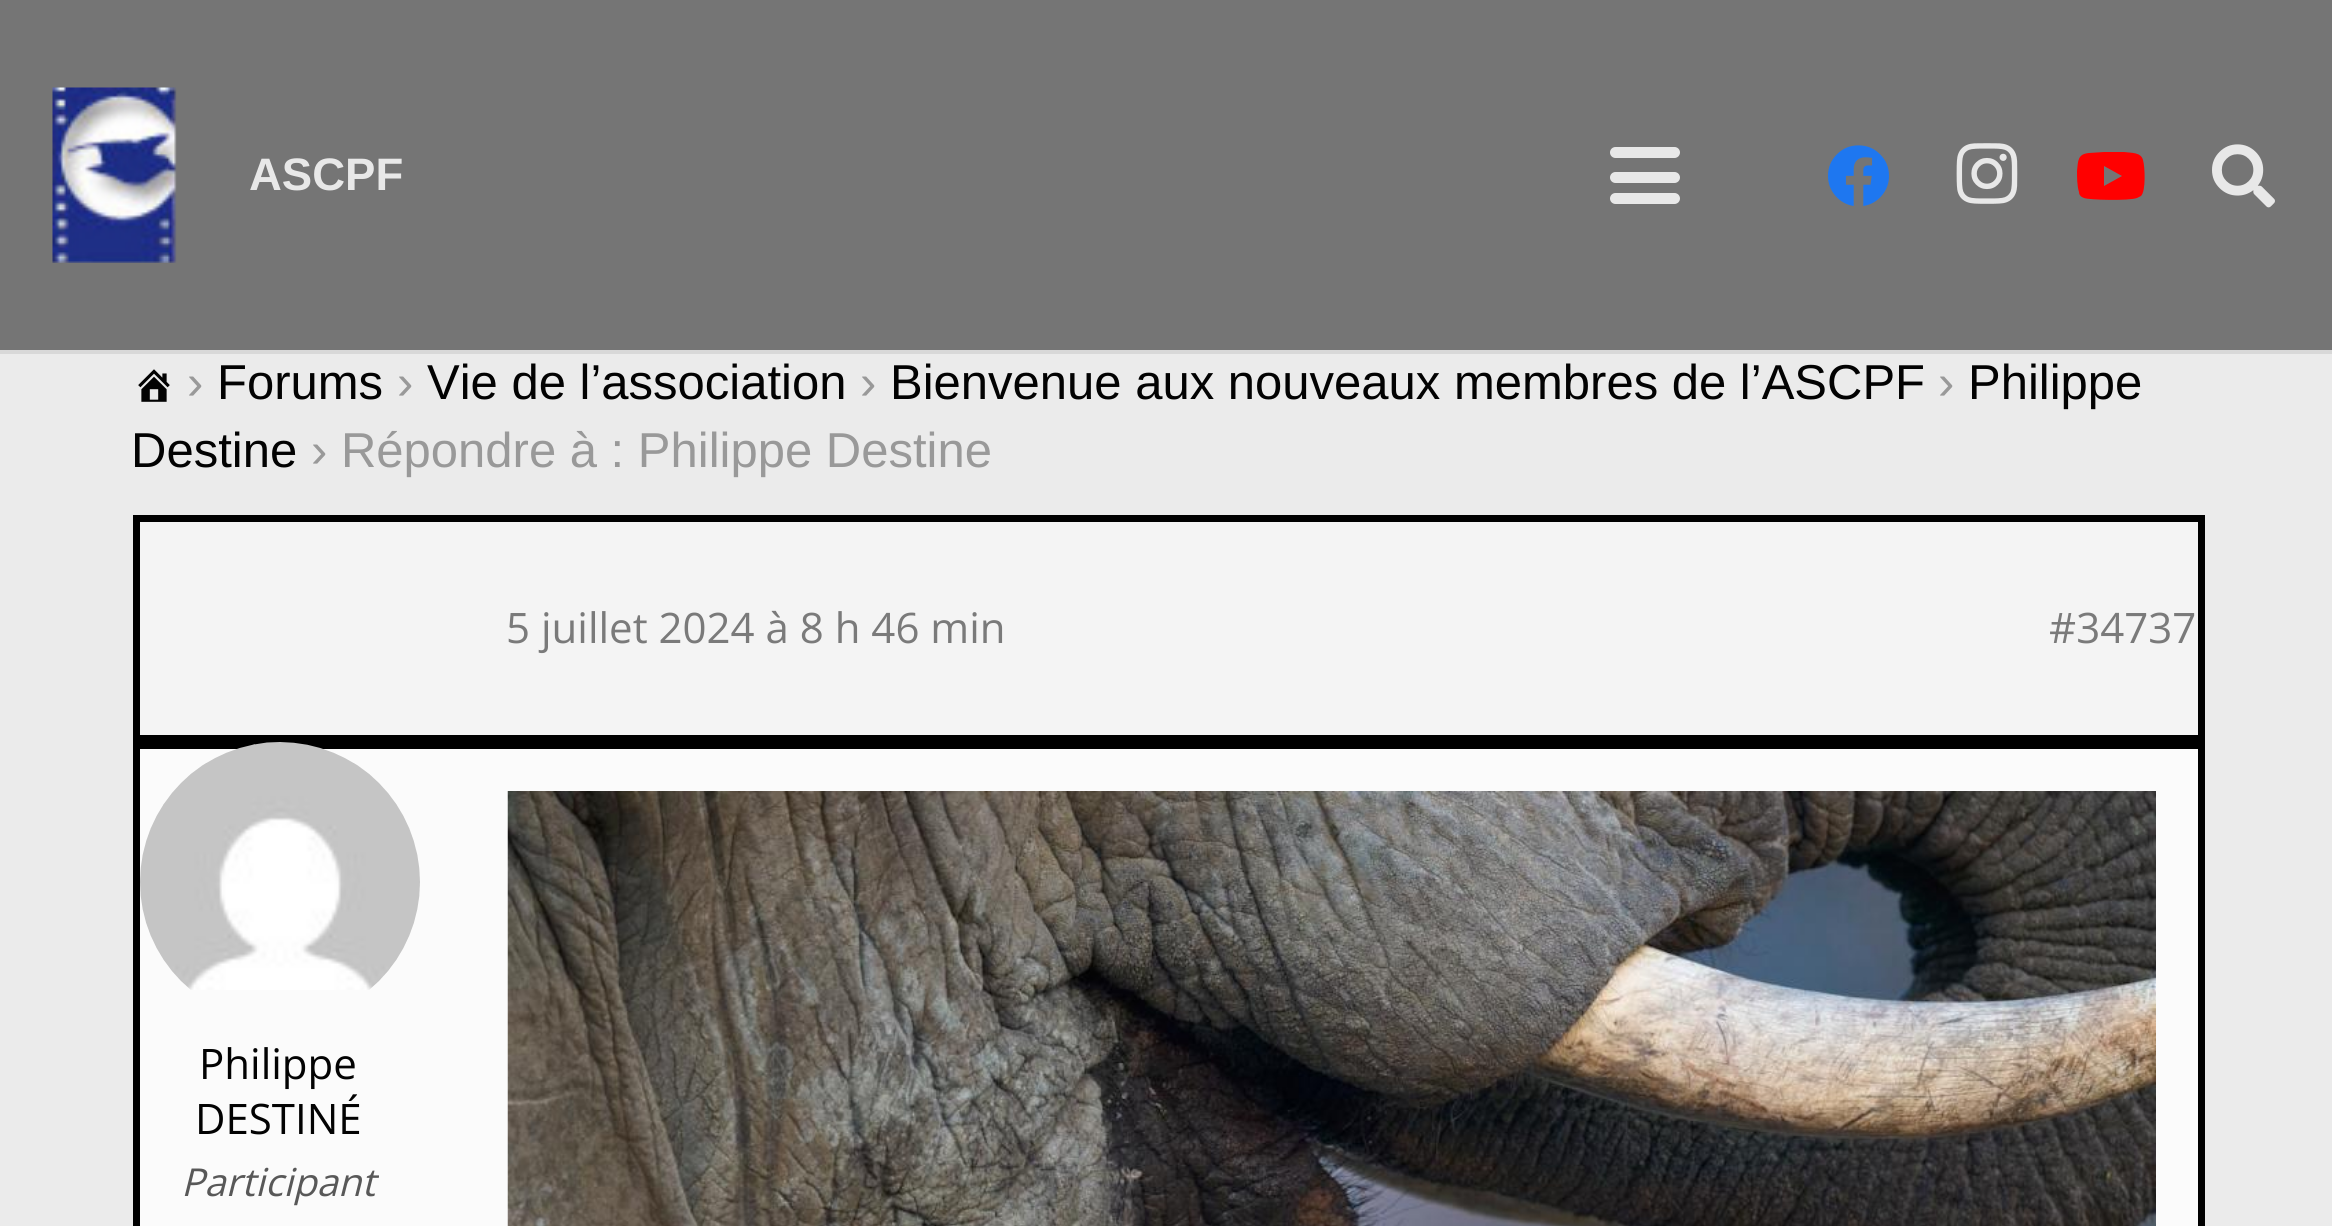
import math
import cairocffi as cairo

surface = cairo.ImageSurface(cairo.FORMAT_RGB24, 2332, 1226)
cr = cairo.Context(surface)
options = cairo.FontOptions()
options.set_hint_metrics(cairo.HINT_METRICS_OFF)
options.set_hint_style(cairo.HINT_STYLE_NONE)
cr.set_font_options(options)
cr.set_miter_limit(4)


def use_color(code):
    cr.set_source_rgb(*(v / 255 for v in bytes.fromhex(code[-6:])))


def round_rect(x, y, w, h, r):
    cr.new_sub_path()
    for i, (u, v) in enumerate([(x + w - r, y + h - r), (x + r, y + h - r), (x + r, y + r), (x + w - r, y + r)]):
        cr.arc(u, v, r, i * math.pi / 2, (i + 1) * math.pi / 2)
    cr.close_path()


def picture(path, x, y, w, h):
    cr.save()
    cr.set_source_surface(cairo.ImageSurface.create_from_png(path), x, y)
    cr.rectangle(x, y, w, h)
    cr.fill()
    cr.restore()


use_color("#ebebeb")
cr.paint()
use_color("#d8d8d8")
cr.new_path()
cr.move_to(0, 350)
cr.line_to(0, 354)
cr.line_to(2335, 354)
cr.line_to(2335, 4)
cr.line_to(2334, 4)
cr.line_to(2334, 350)
cr.close_path()
cr.fill()
use_color("#757575")
cr.rectangle(0, 0, 2332, 350)
cr.fill()
picture("img1.png", 52, 87, 125, 176)
cr.select_font_face("Liberation Sans", cairo.FONT_SLANT_NORMAL, cairo.FONT_WEIGHT_BOLD)
cr.set_font_size(45.5)
use_color("#e8e8e8")
cr.move_to(249, 190)
cr.show_text("ASCPF")
round_rect(1610, 172, 70, 11, 5.5)
cr.fill()
round_rect(1610, 147, 70, 11, 5.5)
cr.fill()
round_rect(1610, 193, 70, 11, 5.5)
cr.fill()
picture("img2.png", 1828, 145, 61, 61)
picture("img3.png", 1956, 143, 62, 61)
use_color("#ff0000")
cr.new_path()
cr.move_to(2143, 160)
cr.curve_to(2145, 167, 2146, 191, 2141, 196)
cr.line_to(2137, 198)
cr.curve_to(2129, 201, 2089, 200, 2084, 198)
cr.curve_to(2081, 197, 2079, 195, 2079, 192)
cr.curve_to(2077, 186, 2077, 177, 2077, 171)
cr.curve_to(2078, 160, 2078, 154, 2089, 153)
cr.line_to(2104, 152)
cr.line_to(2124, 152)
cr.curve_to(2131, 153, 2141, 152, 2143, 160)
cr.close_path()
cr.move_to(2104, 186)
cr.line_to(2122, 176)
cr.line_to(2104, 166)
cr.close_path()
cr.fill()
picture("img4.png", 2212, 144, 63, 64)
picture("img5.png", 138, 369, 32, 33)
cr.select_font_face("Liberation Sans")
cr.set_font_size(49)
use_color("#999999")
cr.move_to(187, 399)
cr.show_text("›")
use_color("#020202")
cr.move_to(217, 399)
cr.show_text("Forums")
use_color("#999999")
cr.move_to(397, 399)
cr.show_text("›")
use_color("#020202")
cr.move_to(427, 399)
cr.show_text("Vie de l’association")
use_color("#999999")
cr.move_to(860, 399)
cr.show_text("›")
use_color("#020202")
cr.move_to(890, 399)
cr.show_text("Bienvenue aux nouveaux membres de l’ASCPF")
use_color("#999999")
cr.move_to(1938, 399)
cr.show_text("›")
use_color("#020202")
cr.move_to(1968, 399)
cr.show_text("Philippe")
cr.move_to(131, 467)
cr.show_text("Destine")
use_color("#999999")
cr.move_to(311, 467)
cr.show_text("› Répondre à : Philippe Destine")
use_color("#f4f4f4")
cr.rectangle(136.5, 518.5, 2065, 220)
cr.fill_preserve()
use_color("#000000")
cr.set_line_width(7)
cr.stroke()
cr.select_font_face("Open Sans")
cr.set_font_size(42)
use_color("#7a7a7a")
cr.move_to(506, 643)
cr.show_text("5 juillet 2024 à 8 h 46 min")
cr.move_to(2049, 643)
cr.show_text("#34737")
use_color("#fbfbfb")
cr.rectangle(136.5, 745.5, 2065, 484)
cr.fill_preserve()
use_color("#000000")
cr.stroke()
picture("img6.png", 140, 742, 280, 248)
use_color("#020202")
cr.move_to(199, 1079)
cr.show_text("Philippe")
cr.move_to(195, 1134)
cr.show_text("DESTINÉ")
cr.select_font_face("Open Sans", cairo.FONT_SLANT_ITALIC)
cr.set_font_size(38.5)
use_color("#585858")
cr.move_to(181, 1196)
cr.show_text("Participant")
picture("img7.png", 507, 791, 1649, 435)
surface.write_to_png("result.png")
